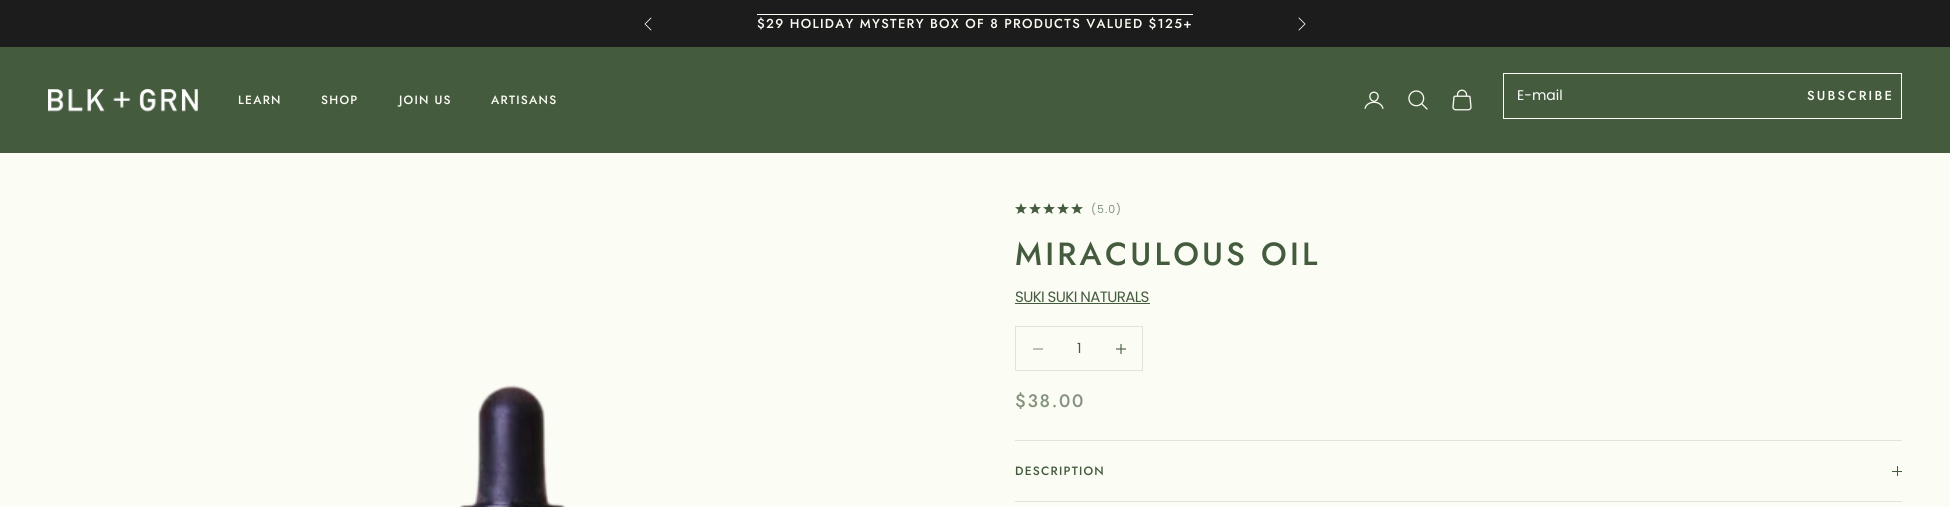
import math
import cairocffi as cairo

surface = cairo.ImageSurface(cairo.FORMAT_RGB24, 1950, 507)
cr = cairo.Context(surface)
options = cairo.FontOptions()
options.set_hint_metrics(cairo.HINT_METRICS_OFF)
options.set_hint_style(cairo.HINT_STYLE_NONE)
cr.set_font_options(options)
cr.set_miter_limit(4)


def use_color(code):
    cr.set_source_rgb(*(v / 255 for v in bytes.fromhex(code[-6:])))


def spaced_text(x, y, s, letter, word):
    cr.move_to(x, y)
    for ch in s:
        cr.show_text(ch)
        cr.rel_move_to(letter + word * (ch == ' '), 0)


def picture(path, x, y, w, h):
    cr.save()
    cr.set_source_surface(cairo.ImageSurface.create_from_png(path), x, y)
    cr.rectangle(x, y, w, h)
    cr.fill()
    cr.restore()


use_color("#fbfcf4")
cr.paint()
use_color("#1c1c1c")
cr.rectangle(0, 0, 1950, 47)
cr.fill()
cr.new_path()
cr.move_to(651, 18)
cr.line_to(645, 24)
cr.line_to(651, 30)
use_color("#fbfcf4")
cr.set_line_width(0.8)
cr.set_line_cap(cairo.LINE_CAP_SQUARE)
cr.stroke()
cr.select_font_face("Jost Medium")
cr.set_font_size(13)
spaced_text(757, 28, "$29 HOLIDAY MYSTERY BOX OF 8 PRODUCTS VALUED $125+", 1.3, 0)
cr.rectangle(757, 14, 436, 1)
cr.fill()
cr.new_path()
cr.move_to(1299, 30)
cr.line_to(1305, 24)
cr.line_to(1299, 18)
cr.stroke()
use_color("#445b3e")
cr.rectangle(0, 47, 1950, 106)
cr.fill()
picture("img1.png", 48, 89, 150, 23)
cr.set_font_size(12)
use_color("#fbfcf4")
spaced_text(238, 104, "LEARN", 1.25, 0)
spaced_text(321, 104, "SHOP", 1.25, 0)
spaced_text(399, 104, "JOIN US", 1.25, 0)
spaced_text(491, 104, "ARTISANS", 1.25, 0)
picture("img2.png", 1364, 91, 20, 18)
picture("img3.png", 1408, 90, 20, 20)
picture("img4.png", 1452, 89, 20, 22)
cr.rectangle(1503.5, 73.5, 398, 45)
use_color("#ffffff")
cr.set_line_width(1)
cr.set_line_cap(cairo.LINE_CAP_BUTT)
cr.stroke()
cr.select_font_face("Poppins")
cr.set_font_size(14)
cr.move_to(1517, 100)
cr.show_text("E-mail")
cr.select_font_face("Jost Medium")
cr.set_font_size(13)
use_color("#fbfcf4")
spaced_text(1807, 100, "SUBSCRIBE", 2.25, 0)
picture("img5.png", 459, 385, 107, 122)
picture("img6.png", 1015, 203, 12, 11)
picture("img6.png", 1029, 203, 12, 11)
picture("img6.png", 1043, 203, 12, 11)
picture("img6.png", 1057, 203, 12, 11)
picture("img6.png", 1071, 203, 12, 11)
cr.select_font_face("Poppins")
cr.set_font_size(11)
use_color("#84937e")
spaced_text(1091, 213, "(5.0)", 1, 0)
cr.select_font_face("Jost Medium")
cr.set_font_size(32)
use_color("#445b3e")
spaced_text(1015, 265, "MIRACULOUS OIL", 3.25, 0)
cr.select_font_face("Poppins")
cr.set_font_size(15)
spaced_text(1015, 302, "SUKI SUKI NATURALS", -0.6, 0)
cr.rectangle(1015, 303, 135, 1)
cr.fill()
cr.rectangle(1015.5, 326.5, 127, 44)
use_color("#e0e4d9")
cr.stroke()
cr.new_path()
cr.move_to(1033, 349)
cr.line_to(1043, 349)
use_color("#84937e")
cr.set_line_width(1.1)
cr.stroke()
cr.set_font_size(14)
use_color("#445b3e")
cr.move_to(1077, 353)
cr.show_text("1")
cr.new_path()
cr.move_to(1121, 344)
cr.line_to(1121, 354)
cr.move_to(1116, 349)
cr.line_to(1126, 349)
cr.stroke()
cr.select_font_face("Jost Medium")
cr.set_font_size(18)
use_color("#84937e")
spaced_text(1015, 407, "$38.00", 1.75, 0)
use_color("#e0e4d9")
cr.rectangle(1015, 440, 887, 1)
cr.fill()
cr.rectangle(1015, 501, 887, 1)
cr.fill()
cr.set_font_size(12)
use_color("#445b3e")
spaced_text(1015, 475, "DESCRIPTION", 1.25, 0)
cr.rectangle(1897, 466, 1, 10)
cr.fill()
cr.rectangle(1892, 471, 10, 1)
cr.fill()
surface.write_to_png("result.png")
